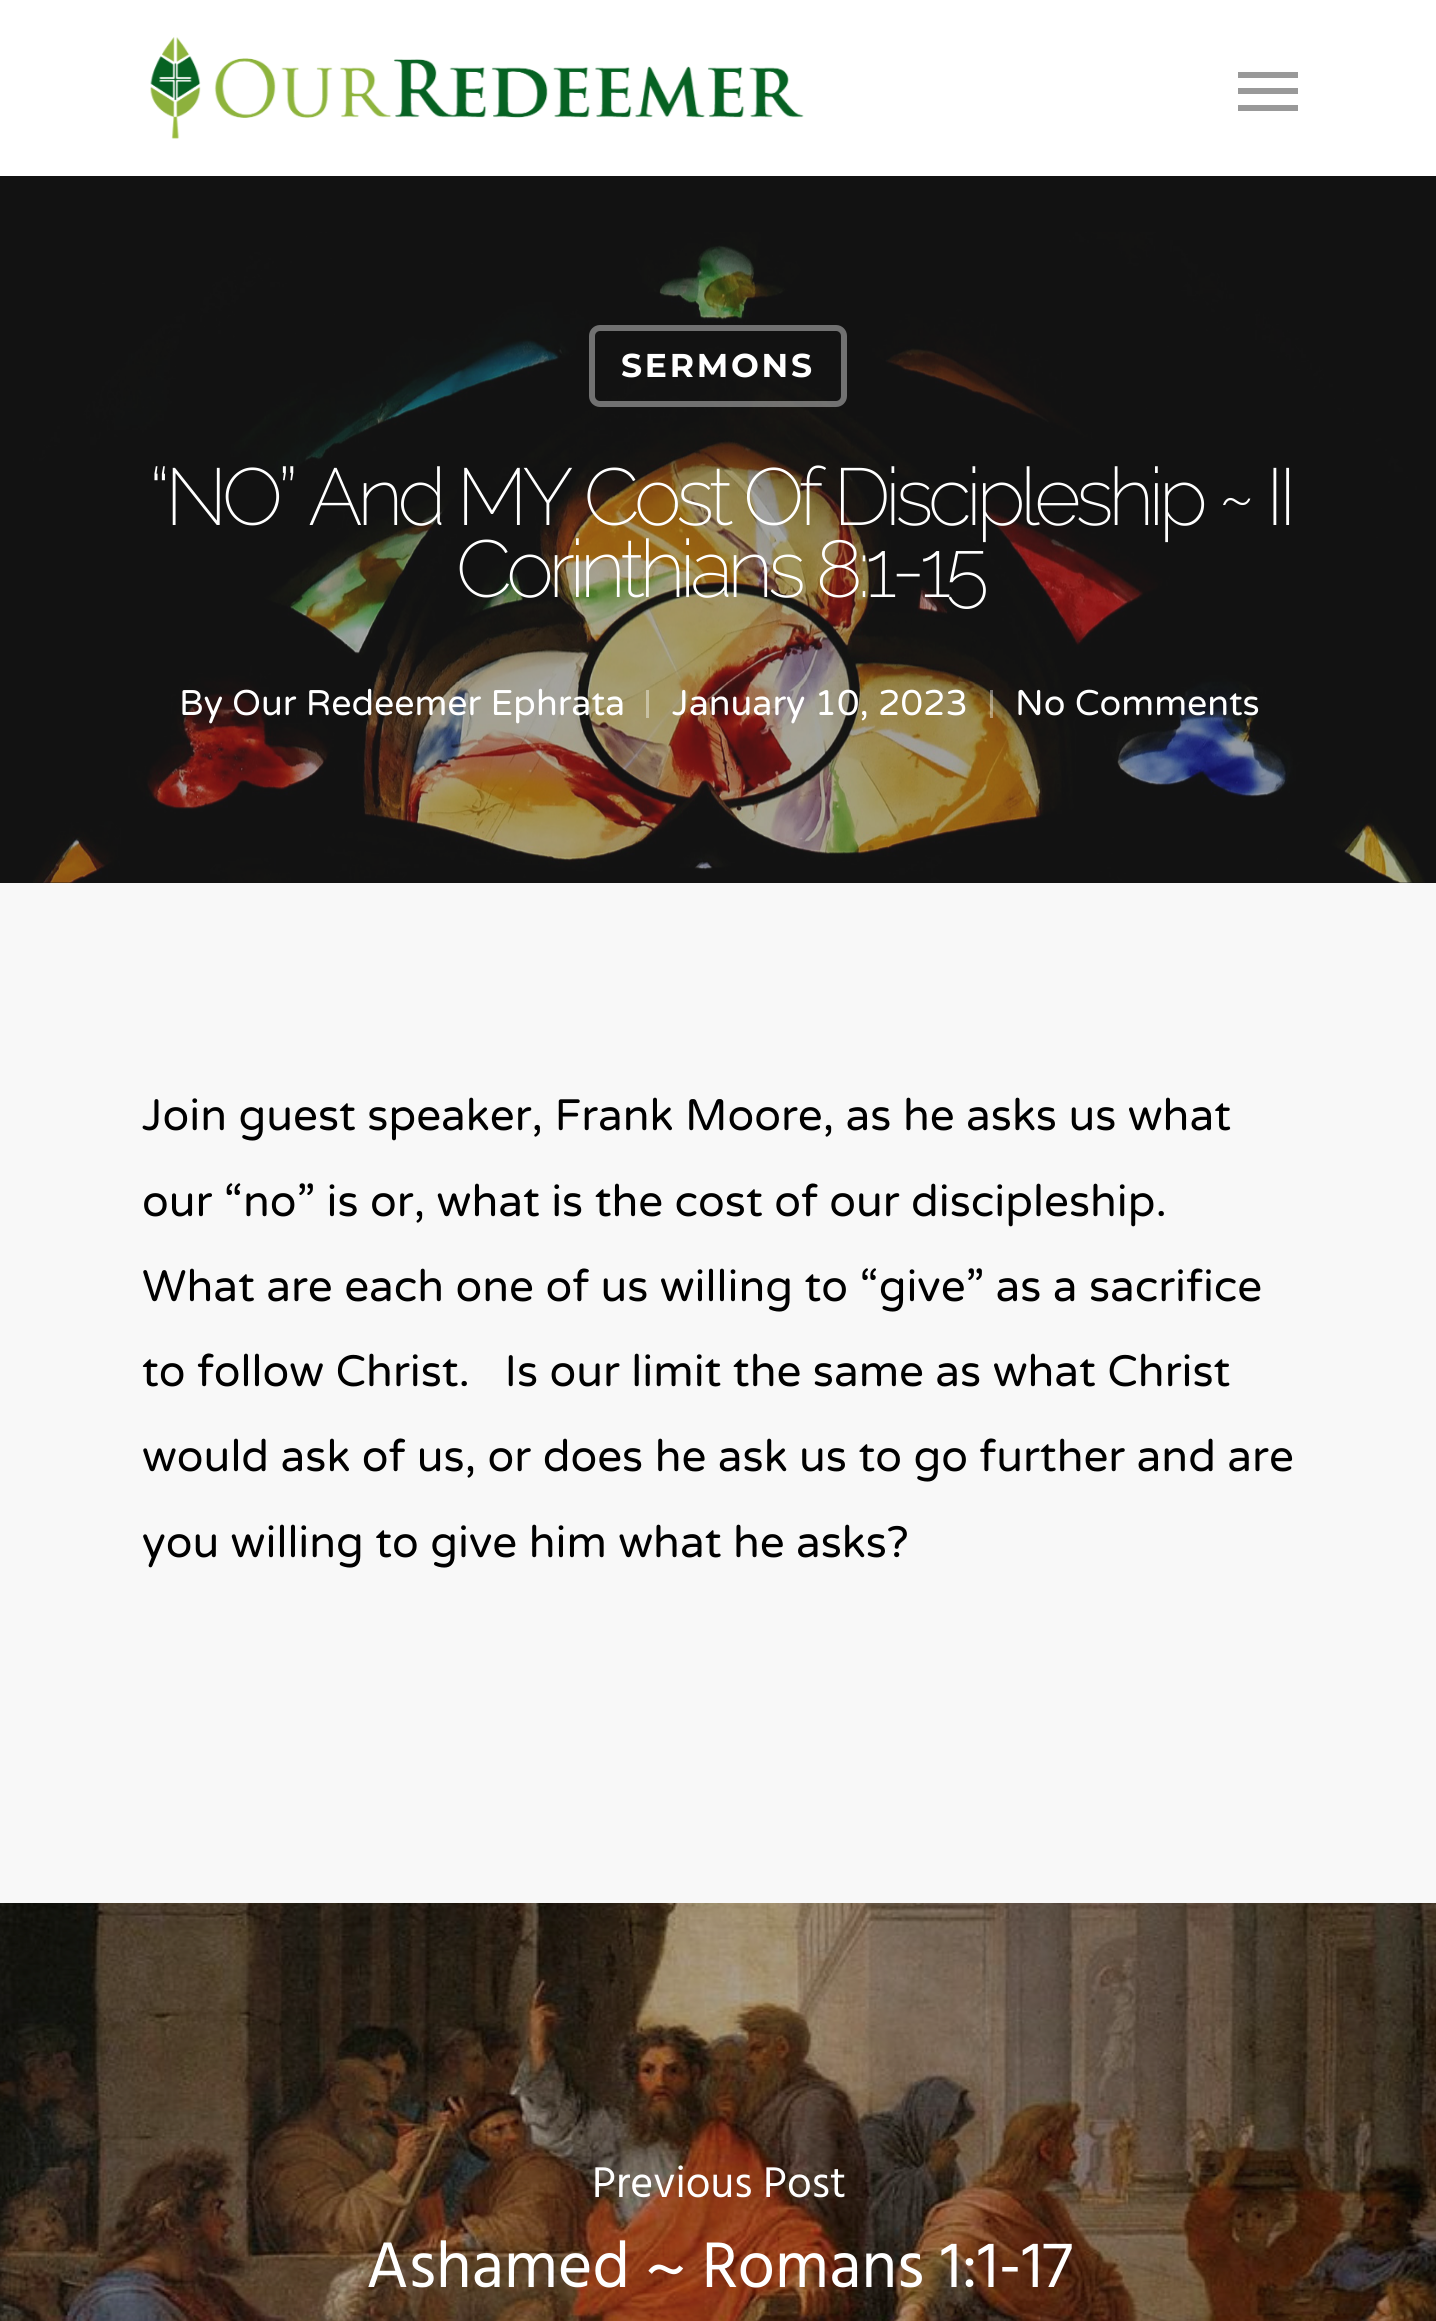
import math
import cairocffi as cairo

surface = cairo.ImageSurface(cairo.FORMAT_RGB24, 1436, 2321)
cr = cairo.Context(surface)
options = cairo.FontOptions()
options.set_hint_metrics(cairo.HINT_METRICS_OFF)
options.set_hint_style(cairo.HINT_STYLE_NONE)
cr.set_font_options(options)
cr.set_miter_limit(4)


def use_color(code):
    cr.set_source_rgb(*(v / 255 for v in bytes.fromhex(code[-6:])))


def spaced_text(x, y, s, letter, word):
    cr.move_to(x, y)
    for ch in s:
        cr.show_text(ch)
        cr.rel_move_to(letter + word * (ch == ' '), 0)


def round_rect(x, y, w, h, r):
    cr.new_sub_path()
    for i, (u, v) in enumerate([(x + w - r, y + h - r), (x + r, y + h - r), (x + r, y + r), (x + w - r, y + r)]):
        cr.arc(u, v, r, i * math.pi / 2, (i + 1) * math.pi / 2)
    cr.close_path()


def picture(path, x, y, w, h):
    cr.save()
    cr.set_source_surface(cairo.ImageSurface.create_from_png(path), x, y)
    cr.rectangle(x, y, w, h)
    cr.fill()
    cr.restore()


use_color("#f8f8f8")
cr.paint()
use_color("#ffffff")
cr.rectangle(0, 0, 1436, 176)
cr.fill()
picture("img1.png", 150, 37, 654, 102)
use_color("#999999")
cr.rectangle(1238, 72, 60, 6)
cr.fill()
cr.rectangle(1238, 105, 60, 6)
cr.fill()
cr.rectangle(1238, 88, 60, 6)
cr.fill()
use_color("#121212")
cr.rectangle(0, 176, 1436, 707)
cr.fill()
picture("img2.png", 33, 232, 1392, 651)
round_rect(592, 328, 252, 76, 8)
cr.set_source_rgba(1, 1, 1, 0.4)
cr.set_line_width(6)
cr.stroke()
cr.select_font_face("Montserrat", cairo.FONT_SLANT_NORMAL, cairo.FONT_WEIGHT_BOLD)
cr.set_font_size(33)
use_color("#ffffff")
spaced_text(621, 377, "SERMONS", 2.75, 0)
cr.select_font_face("Raleway Thin")
cr.set_font_size(80.5)
spaced_text(149, 525, "“NO” And MY Cost Of Discipleship ~ II", -5.5, 0)
spaced_text(456, 597, "Corinthians 8:1-15", -5.5, 0)
cr.select_font_face("Varela Round")
cr.set_font_size(35.75)
cr.move_to(179, 715)
cr.show_text("By")
cr.move_to(232, 715)
cr.show_text("Our Redeemer Ephrata")
cr.set_source_rgba(1, 1, 1, 0.4)
cr.rectangle(646, 690, 3, 28)
cr.fill()
use_color("#ffffff")
cr.move_to(672, 715)
cr.show_text("January 10, 2023")
cr.set_source_rgba(1, 1, 1, 0.4)
cr.rectangle(990, 690, 3, 28)
cr.fill()
use_color("#ffffff")
cr.move_to(1015, 715)
cr.show_text("No Comments")
cr.set_font_size(44)
use_color("#000000")
cr.move_to(142, 1130)
cr.show_text("Join guest speaker, Frank Moore, as he asks us what")
cr.move_to(142, 1216)
cr.show_text("our “no” is or, what is the cost of our discipleship.")
cr.move_to(142, 1301)
cr.show_text("What are each one of us willing to “give” as a sacrifice")
cr.move_to(142, 1386)
cr.show_text("to follow Christ.   Is our limit the same as what Christ")
cr.move_to(142, 1471)
cr.show_text("would ask of us, or does he ask us to go further and are")
cr.move_to(142, 1557)
cr.show_text("you willing to give him what he asks?")
picture("img3.png", 0, 1903, 1436, 418)
cr.select_font_face("Hind")
use_color("#ffffff")
cr.move_to(592, 2197)
cr.show_text("Previous Post")
cr.set_font_size(66)
cr.move_to(366, 2287)
cr.show_text("Ashamed ~ Romans 1:1-17")
surface.write_to_png("result.png")
